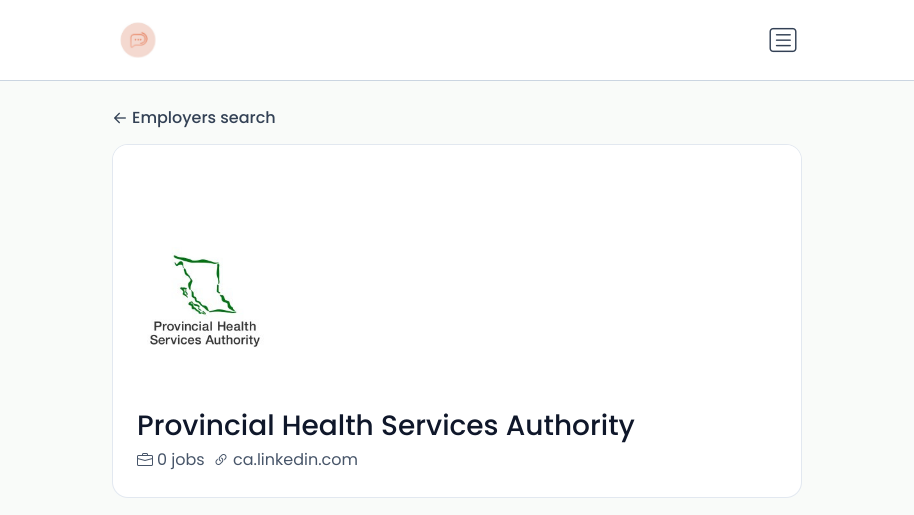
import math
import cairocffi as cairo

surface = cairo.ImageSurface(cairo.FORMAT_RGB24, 914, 515)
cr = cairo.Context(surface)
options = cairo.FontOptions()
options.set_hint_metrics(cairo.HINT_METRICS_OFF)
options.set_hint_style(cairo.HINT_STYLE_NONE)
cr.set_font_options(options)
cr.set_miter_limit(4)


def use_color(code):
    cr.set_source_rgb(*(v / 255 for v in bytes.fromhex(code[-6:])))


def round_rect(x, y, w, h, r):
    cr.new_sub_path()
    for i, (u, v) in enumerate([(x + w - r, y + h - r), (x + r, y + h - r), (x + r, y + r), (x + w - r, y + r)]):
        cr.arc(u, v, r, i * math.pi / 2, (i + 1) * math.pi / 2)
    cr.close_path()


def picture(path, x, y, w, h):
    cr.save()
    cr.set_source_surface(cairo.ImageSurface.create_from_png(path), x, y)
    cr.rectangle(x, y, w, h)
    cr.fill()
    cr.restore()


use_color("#f9fbf9")
cr.paint()
use_color("#ffffff")
cr.rectangle(0, 0, 914, 80)
cr.fill()
use_color("#cbd5e1")
cr.rectangle(0, 80, 914, 1)
cr.fill()
picture("img1.png", 120, 22, 36, 36)
picture("img2.png", 769, 27, 28, 26)
picture("img3.png", 114, 112, 12, 12)
cr.select_font_face("Poppins Medium")
cr.set_font_size(16)
use_color("#334155")
cr.move_to(132, 123)
cr.show_text("Employers search")
use_color("#ffffff")
round_rect(112.5, 144.5, 689, 353, 15.5)
cr.fill_preserve()
use_color("#e2e8f0")
cr.set_line_width(1)
cr.stroke()
use_color("#ffffff")
cr.new_path()
cr.move_to(128, 145)
cr.line_to(786, 145)
cr.curve_to(794.5, 145, 801, 151.5, 801, 160)
cr.line_to(801, 345)
cr.line_to(113, 345)
cr.line_to(113, 160)
cr.curve_to(113, 151.5, 119.5, 145, 128, 145)
cr.close_path()
cr.fill()
picture("img4.png", 147, 247, 117, 101)
cr.set_font_size(28)
use_color("#0f172a")
cr.move_to(137, 435)
cr.show_text("Provincial Health Services Authority")
picture("img5.png", 137, 453, 16, 13)
cr.select_font_face("Poppins")
cr.set_font_size(16)
use_color("#475569")
cr.move_to(157, 465)
cr.show_text("0 jobs")
picture("img6.png", 215, 454, 12, 11)
cr.move_to(233, 465)
cr.show_text("ca.linkedin.com")
surface.write_to_png("result.png")
